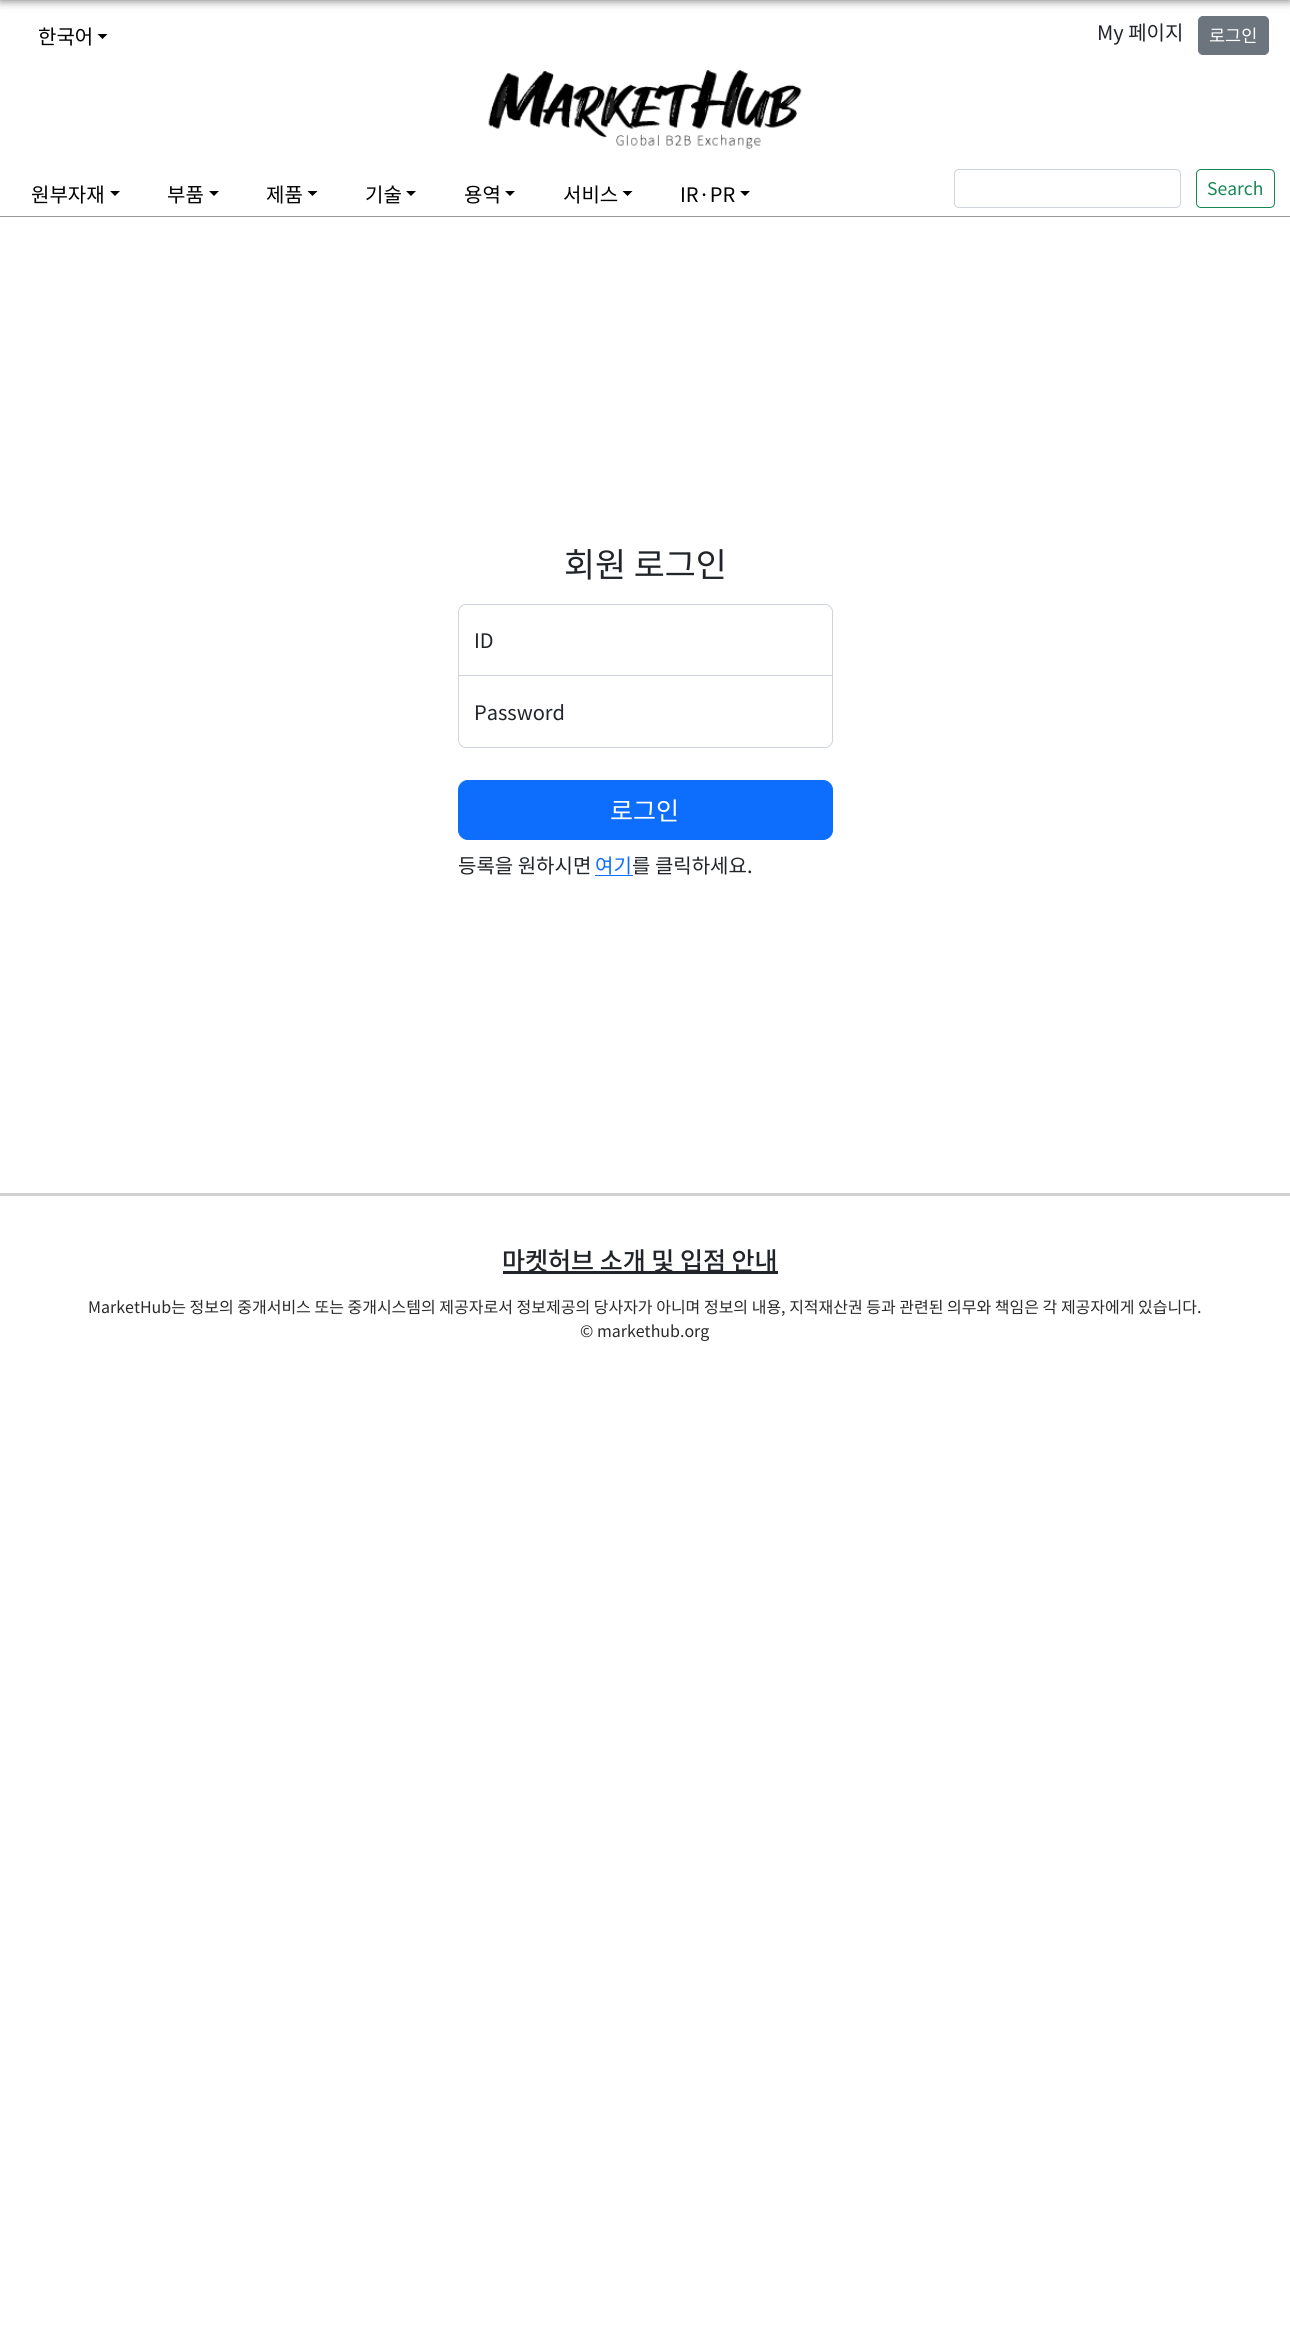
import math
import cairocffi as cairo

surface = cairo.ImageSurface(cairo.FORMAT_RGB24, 1290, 2343)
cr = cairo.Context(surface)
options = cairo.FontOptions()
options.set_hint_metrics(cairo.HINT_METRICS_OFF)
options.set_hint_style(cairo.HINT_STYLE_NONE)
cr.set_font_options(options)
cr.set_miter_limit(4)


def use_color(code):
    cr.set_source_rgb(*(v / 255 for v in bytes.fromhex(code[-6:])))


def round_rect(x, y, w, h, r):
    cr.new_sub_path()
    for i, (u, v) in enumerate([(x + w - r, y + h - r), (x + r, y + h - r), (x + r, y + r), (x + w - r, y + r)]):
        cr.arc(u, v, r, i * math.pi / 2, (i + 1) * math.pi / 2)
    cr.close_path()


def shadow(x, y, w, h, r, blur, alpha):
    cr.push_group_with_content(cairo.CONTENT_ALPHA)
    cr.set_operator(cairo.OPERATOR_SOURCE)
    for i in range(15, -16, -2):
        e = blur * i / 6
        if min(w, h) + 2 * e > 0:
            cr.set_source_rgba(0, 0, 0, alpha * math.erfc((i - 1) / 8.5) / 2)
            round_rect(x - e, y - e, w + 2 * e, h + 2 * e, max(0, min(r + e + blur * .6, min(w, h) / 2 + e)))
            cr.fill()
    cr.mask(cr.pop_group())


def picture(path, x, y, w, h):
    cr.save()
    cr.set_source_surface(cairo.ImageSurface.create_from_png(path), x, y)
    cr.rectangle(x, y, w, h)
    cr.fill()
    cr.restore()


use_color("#ffffff")
cr.paint()
use_color("#000000")
shadow(0, -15, 1290, 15, 0, 5, 0.6)
use_color("#999999")
cr.rectangle(0, 216, 1290, 1)
cr.fill()
cr.select_font_face("Noto Sans KR")
cr.set_font_size(20)
use_color("#000000")
cr.move_to(38, 44)
cr.show_text("한국어")
cr.new_path()
cr.move_to(97.5, 34)
cr.line_to(107.5, 34)
cr.line_to(102.5, 39)
cr.close_path()
cr.fill()
use_color("#212529")
cr.move_to(1097, 40)
cr.show_text("My 페이지")
use_color("#6c757d")
round_rect(1198.5, 16.5, 70, 38, 4.5)
cr.fill_preserve()
cr.set_line_width(1)
cr.stroke()
cr.set_font_size(17.5)
use_color("#ffffff")
cr.move_to(1209, 42)
cr.show_text("로그인")
picture("img1.png", 488, 70, 314, 79)
cr.set_font_size(20)
use_color("#000000")
cr.move_to(31, 202)
cr.show_text("원부자재")
cr.new_path()
cr.move_to(110, 191)
cr.line_to(120, 191)
cr.line_to(115, 196)
cr.close_path()
cr.fill()
cr.move_to(167, 202)
cr.show_text("부품")
cr.new_path()
cr.move_to(209, 191)
cr.line_to(219, 191)
cr.line_to(214, 196)
cr.close_path()
cr.fill()
cr.move_to(266, 202)
cr.show_text("제품")
cr.new_path()
cr.move_to(307.5, 191)
cr.line_to(317.5, 191)
cr.line_to(312.5, 196)
cr.close_path()
cr.fill()
cr.move_to(365, 202)
cr.show_text("기술")
cr.new_path()
cr.move_to(406, 191)
cr.line_to(416, 191)
cr.line_to(411, 196)
cr.close_path()
cr.fill()
cr.move_to(464, 202)
cr.show_text("용역")
cr.new_path()
cr.move_to(505, 191)
cr.line_to(515, 191)
cr.line_to(510, 196)
cr.close_path()
cr.fill()
cr.move_to(563, 202)
cr.show_text("서비스")
cr.new_path()
cr.move_to(622.5, 191)
cr.line_to(632.5, 191)
cr.line_to(627.5, 196)
cr.close_path()
cr.fill()
cr.move_to(680, 202)
cr.show_text("IR·PR")
cr.new_path()
cr.move_to(740, 191)
cr.line_to(750, 191)
cr.line_to(745, 196)
cr.close_path()
cr.fill()
round_rect(954.5, 169.5, 226, 38, 4.5)
use_color("#ced4da")
cr.stroke()
round_rect(1196.5, 169.5, 78, 38, 4.5)
use_color("#198754")
cr.stroke()
cr.set_font_size(17.5)
cr.move_to(1207, 195)
cr.show_text("Search")
cr.set_font_size(33.75)
use_color("#212529")
cr.move_to(564, 577)
cr.show_text("회원 로그인")
cr.new_path()
cr.move_to(466, 604.5)
cr.line_to(825, 604.5)
cr.curve_to(829, 604.5, 832.5, 608, 832.5, 612)
cr.line_to(832.5, 675.5)
cr.line_to(458.5, 675.5)
cr.line_to(458.5, 612)
cr.curve_to(458.5, 608, 462, 604.5, 466, 604.5)
cr.close_path()
use_color("#ced4da")
cr.stroke()
cr.set_font_size(20)
use_color("#212529")
cr.move_to(474, 648)
cr.show_text("ID")
cr.new_path()
cr.move_to(458.5, 675.5)
cr.line_to(832.5, 675.5)
cr.line_to(832.5, 740)
cr.curve_to(832.5, 744, 829, 747.5, 825, 747.5)
cr.line_to(466, 747.5)
cr.curve_to(462, 747.5, 458.5, 744, 458.5, 740)
cr.close_path()
use_color("#ced4da")
cr.stroke()
use_color("#212529")
cr.move_to(474, 720)
cr.show_text("Password")
use_color("#0d6efd")
round_rect(458.5, 780.5, 374, 59, 9.5)
cr.fill_preserve()
cr.stroke()
cr.set_font_size(25)
use_color("#ffffff")
cr.move_to(610, 820)
cr.show_text("로그인")
cr.set_font_size(20)
use_color("#212529")
cr.move_to(458, 873)
cr.show_text("등록을 원하시면")
use_color("#0d6efd")
cr.move_to(595, 873)
cr.show_text("여기")
cr.rectangle(595, 875, 38, 1)
cr.fill()
use_color("#212529")
cr.move_to(632, 873)
cr.show_text("를 클릭하세요.")
use_color("#d0d0d0")
cr.rectangle(0, 1193, 1290, 3)
cr.fill()
use_color("#212529")
cr.rectangle(503, 1271, 275, 3)
cr.fill()
cr.select_font_face("Noto Sans KR Medium")
cr.set_font_size(25)
cr.move_to(502, 1270)
cr.show_text("마켓허브 소개 및 입점 안내")
cr.select_font_face("Noto Sans KR")
cr.set_font_size(16)
use_color("#2b2b2b")
cr.move_to(88, 1313)
cr.show_text("MarketHub는 정보의 중개서비스 또는 중개시스템의 제공자로서 정보제공의 당사자가 아니며 정보의 내용, 지적재산권 등과 관련된 의무와 책임은 각 제공자에게 있습니다.")
cr.move_to(580, 1337)
cr.show_text("© markethub.org")
surface.write_to_png("result.png")
